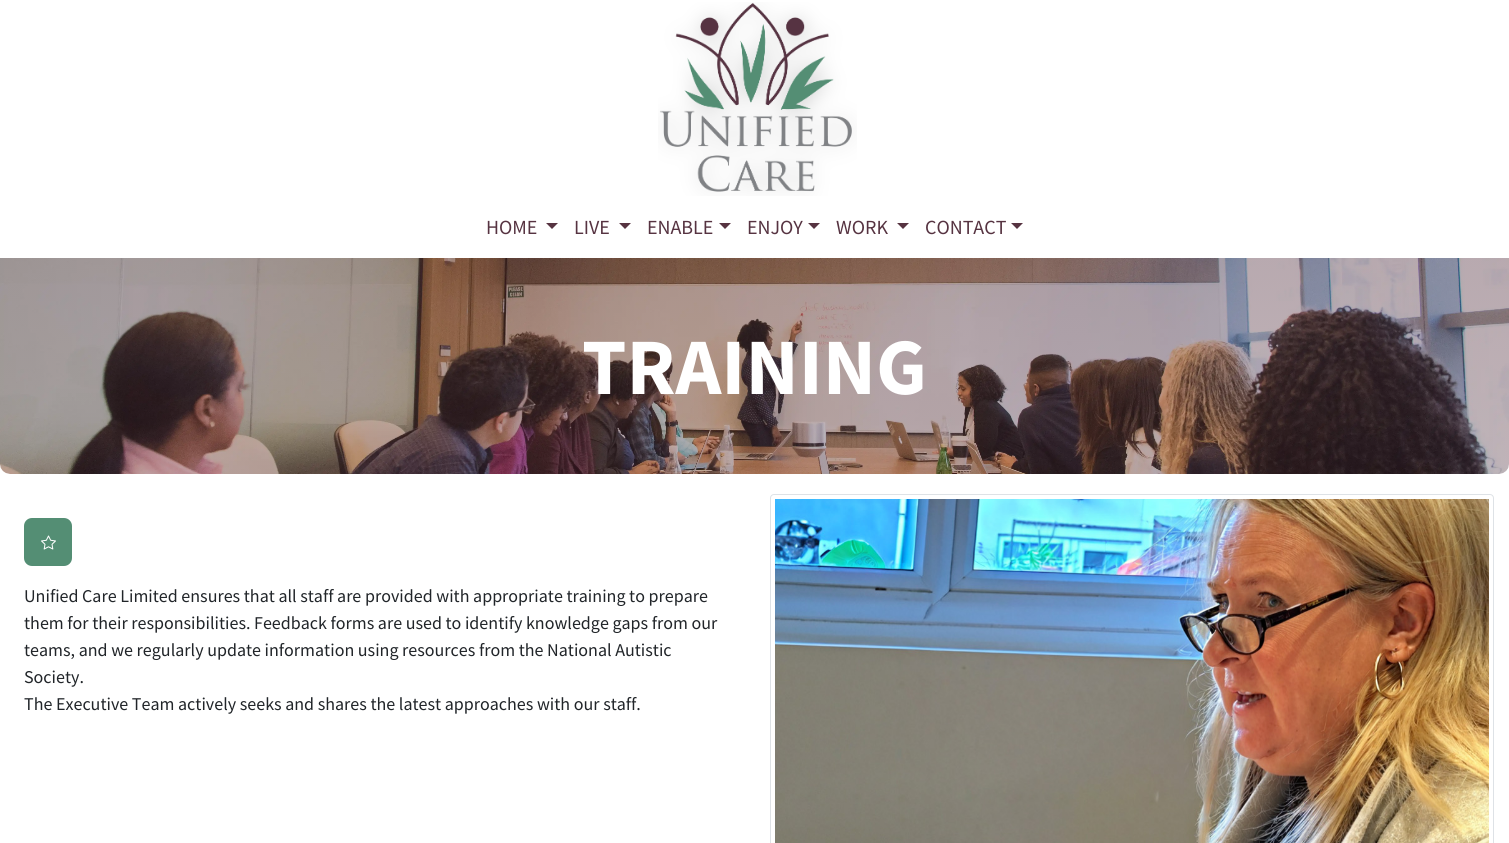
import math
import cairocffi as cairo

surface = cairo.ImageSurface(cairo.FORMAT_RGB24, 1509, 843)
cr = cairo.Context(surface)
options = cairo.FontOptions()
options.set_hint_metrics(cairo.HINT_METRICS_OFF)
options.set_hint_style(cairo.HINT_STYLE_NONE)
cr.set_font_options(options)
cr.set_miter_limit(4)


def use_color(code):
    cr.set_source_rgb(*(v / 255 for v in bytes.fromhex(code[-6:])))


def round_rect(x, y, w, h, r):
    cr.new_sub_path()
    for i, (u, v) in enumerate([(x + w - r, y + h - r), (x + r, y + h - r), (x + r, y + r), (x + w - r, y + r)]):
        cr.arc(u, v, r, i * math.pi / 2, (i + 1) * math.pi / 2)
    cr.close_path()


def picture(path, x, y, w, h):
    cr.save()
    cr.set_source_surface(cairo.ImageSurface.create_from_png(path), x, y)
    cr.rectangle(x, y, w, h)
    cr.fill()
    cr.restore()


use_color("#ffffff")
cr.paint()
picture("img1.png", 658, 2, 199, 194)
cr.select_font_face("Source Sans Pro")
cr.set_font_size(20)
use_color("#563341")
cr.move_to(486, 234)
cr.show_text("HOME")
cr.new_path()
cr.move_to(546, 223)
cr.line_to(558, 223)
cr.line_to(552, 229)
cr.close_path()
cr.fill()
cr.move_to(574, 234)
cr.show_text("LIVE")
cr.new_path()
cr.move_to(619, 223)
cr.line_to(631, 223)
cr.line_to(625, 229)
cr.close_path()
cr.fill()
cr.move_to(647, 234)
cr.show_text("ENABLE")
cr.new_path()
cr.move_to(719, 223)
cr.line_to(731, 223)
cr.line_to(725, 229)
cr.close_path()
cr.fill()
cr.move_to(747, 234)
cr.show_text("ENJOY")
cr.new_path()
cr.move_to(808, 223)
cr.line_to(820, 223)
cr.line_to(814, 229)
cr.close_path()
cr.fill()
cr.move_to(836, 234)
cr.show_text("WORK")
cr.new_path()
cr.move_to(897, 223)
cr.line_to(909, 223)
cr.line_to(903, 229)
cr.close_path()
cr.fill()
cr.move_to(925, 234)
cr.show_text("CONTACT")
cr.new_path()
cr.move_to(1011, 223)
cr.line_to(1023, 223)
cr.line_to(1017, 229)
cr.close_path()
cr.fill()
picture("img2.png", 0, 258, 1509, 216)
cr.select_font_face("Source Sans Pro", cairo.FONT_SLANT_NORMAL, cairo.FONT_WEIGHT_BOLD)
cr.set_font_size(80)
use_color("#ffffff")
cr.move_to(582, 394)
cr.show_text("TRAINING")
use_color("#548e74")
round_rect(24, 518, 48, 48, 8)
cr.fill()
picture("img3.png", 41, 535, 15, 15)
cr.select_font_face("Source Sans Pro")
cr.set_font_size(18)
use_color("#212529")
cr.move_to(24, 602)
cr.show_text("Unified Care Limited ensures that all staff are provided with appropriate training to prepare")
cr.move_to(24, 629)
cr.show_text("them for their responsibilities. Feedback forms are used to identify knowledge gaps from our")
cr.move_to(24, 656)
cr.show_text("teams, and we regularly update information using resources from the National Autistic")
cr.move_to(24, 683)
cr.show_text("Society.")
cr.move_to(24, 710)
cr.show_text("The Executive Team actively seeks and shares the latest approaches with our staff.")
round_rect(770.5, 494.5, 723, 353, 3.5)
use_color("#dee2e6")
cr.set_line_width(1)
cr.stroke()
picture("img4.png", 775, 499, 714, 344)
surface.write_to_png("result.png")
